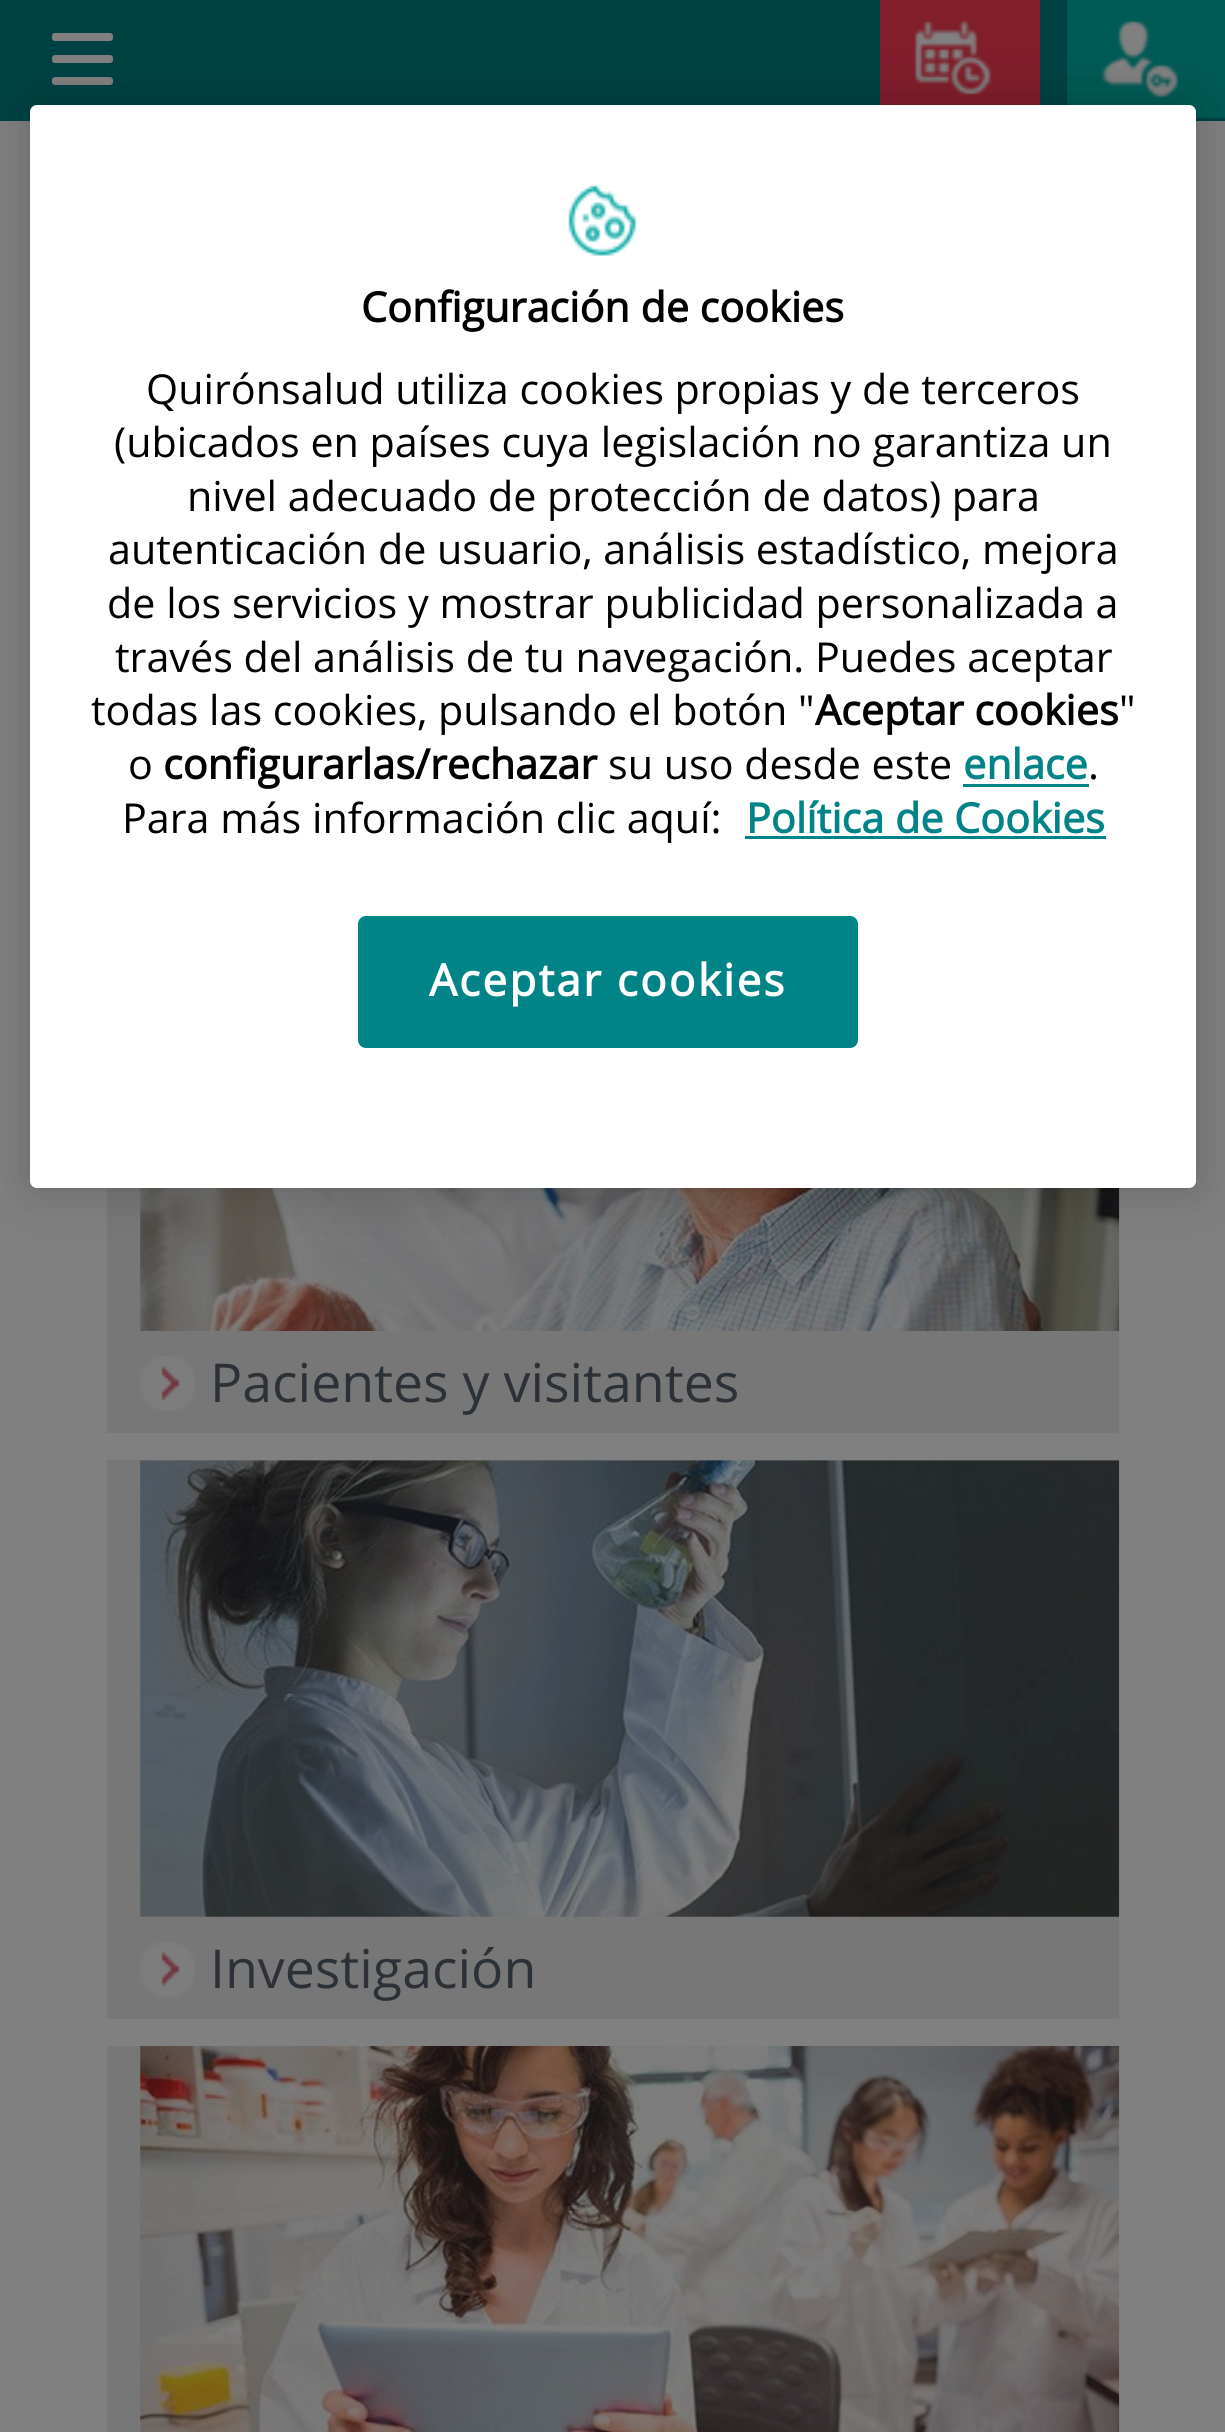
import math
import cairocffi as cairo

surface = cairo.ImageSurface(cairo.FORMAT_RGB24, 1225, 2432)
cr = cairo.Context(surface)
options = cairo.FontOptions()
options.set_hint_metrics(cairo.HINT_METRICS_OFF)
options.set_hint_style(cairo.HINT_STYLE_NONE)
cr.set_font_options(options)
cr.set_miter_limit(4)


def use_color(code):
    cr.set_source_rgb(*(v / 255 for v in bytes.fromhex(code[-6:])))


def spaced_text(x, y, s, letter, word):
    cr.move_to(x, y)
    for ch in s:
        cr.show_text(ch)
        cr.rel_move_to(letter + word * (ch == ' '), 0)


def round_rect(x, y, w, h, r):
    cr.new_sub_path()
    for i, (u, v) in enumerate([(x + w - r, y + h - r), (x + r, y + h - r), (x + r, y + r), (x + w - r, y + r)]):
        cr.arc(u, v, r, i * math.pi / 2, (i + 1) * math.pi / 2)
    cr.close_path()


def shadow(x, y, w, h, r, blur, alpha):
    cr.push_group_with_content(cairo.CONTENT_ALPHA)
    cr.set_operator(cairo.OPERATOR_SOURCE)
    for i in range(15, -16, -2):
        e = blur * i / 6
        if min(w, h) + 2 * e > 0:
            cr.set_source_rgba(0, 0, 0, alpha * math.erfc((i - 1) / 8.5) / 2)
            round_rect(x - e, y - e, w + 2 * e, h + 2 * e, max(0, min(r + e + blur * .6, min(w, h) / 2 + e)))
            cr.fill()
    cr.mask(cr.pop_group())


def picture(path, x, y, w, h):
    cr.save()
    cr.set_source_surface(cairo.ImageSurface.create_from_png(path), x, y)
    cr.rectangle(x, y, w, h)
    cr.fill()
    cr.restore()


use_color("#808080")
cr.paint()
use_color("#004244")
cr.rectangle(0, 0, 1225, 121)
cr.fill()
use_color("#808080")
round_rect(52, 33, 61, 8, 3)
cr.fill()
round_rect(52, 55, 61, 8, 3)
cr.fill()
round_rect(52, 77, 61, 8, 3)
cr.fill()
use_color("#801e2a")
cr.rectangle(880, 0, 160, 105)
cr.fill()
picture("img2.png", 914, 20, 78, 75)
use_color("#005a55")
cr.rectangle(1067, 0, 158, 118)
cr.fill()
picture("img3.png", 1101, 20, 78, 78)
use_color("#777777")
cr.rectangle(107, 1188, 1012, 245)
cr.fill()
picture("img4.png", 140, 1188, 980, 143)
use_color("#000000")
shadow(30, 105, 1166, 1083, 7, 25, 0.2)
use_color("#ffffff")
round_rect(30, 105, 1166, 1083, 7)
cr.fill()
picture("img1.png", 568, 185, 69, 71)
cr.select_font_face("Open Sans", cairo.FONT_SLANT_NORMAL, cairo.FONT_WEIGHT_BOLD)
cr.set_font_size(41.25)
use_color("#000000")
cr.move_to(361, 322)
cr.show_text("Configuración de cookies")
cr.select_font_face("Open Sans")
cr.move_to(146, 404)
cr.show_text("Quirónsalud utiliza cookies propias y de terceros")
cr.move_to(114, 457)
cr.show_text("(ubicados en países cuya legislación no garantiza un")
cr.move_to(187, 511)
cr.show_text("nivel adecuado de protección de datos) para")
cr.move_to(108, 564)
cr.show_text("autenticación de usuario, análisis estadístico, mejora")
cr.move_to(107, 618)
cr.show_text("de los servicios y mostrar publicidad personalizada a")
cr.move_to(115, 672)
cr.show_text("través del análisis de tu navegación. Puedes aceptar")
cr.move_to(91, 725)
cr.show_text("todas las cookies, pulsando el botón \"")
cr.select_font_face("Open Sans", cairo.FONT_SLANT_NORMAL, cairo.FONT_WEIGHT_BOLD)
cr.move_to(815, 725)
cr.show_text("Aceptar cookies")
cr.select_font_face("Open Sans")
cr.move_to(1119, 725)
cr.show_text("\"")
cr.move_to(128, 779)
cr.show_text("o")
cr.select_font_face("Open Sans", cairo.FONT_SLANT_NORMAL, cairo.FONT_WEIGHT_BOLD)
cr.move_to(163, 779)
cr.show_text("configurarlas/rechazar")
cr.select_font_face("Open Sans")
cr.move_to(608, 779)
cr.show_text("su uso desde este")
cr.select_font_face("Open Sans", cairo.FONT_SLANT_NORMAL, cairo.FONT_WEIGHT_BOLD)
use_color("#008488")
cr.move_to(963, 779)
cr.show_text("enlace")
cr.rectangle(963, 784, 126, 3)
cr.fill()
cr.select_font_face("Open Sans")
use_color("#000000")
cr.move_to(1088, 779)
cr.show_text(".")
cr.move_to(122, 833)
cr.show_text("Para más información clic aquí:")
cr.select_font_face("Open Sans", cairo.FONT_SLANT_NORMAL, cairo.FONT_WEIGHT_BOLD)
use_color("#008488")
cr.move_to(746, 833)
cr.show_text("Política de Cookies")
cr.rectangle(745, 836, 361, 3)
cr.fill()
round_rect(359.5, 917.5, 497, 129, 6.5)
cr.fill_preserve()
cr.set_line_width(3)
cr.stroke()
cr.set_font_size(44)
use_color("#ffffff")
spaced_text(429, 996, "Aceptar cookies", 2.25, 0)
picture("img5.png", 140, 1356, 55, 55)
cr.select_font_face("Open Sans")
cr.set_font_size(53.6)
use_color("#2b3136")
cr.move_to(210, 1402)
cr.show_text("Pacientes y visitantes")
use_color("#777777")
cr.rectangle(107, 1460, 1012, 559)
cr.fill()
picture("img6.png", 140, 1460, 980, 457)
picture("img7.png", 140, 1941, 55, 56)
use_color("#2b3136")
cr.move_to(210, 1988)
cr.show_text("Investigación")
use_color("#777777")
cr.rectangle(107, 2046, 1012, 386)
cr.fill()
picture("img8.png", 140, 2046, 980, 386)
surface.write_to_png("result.png")
